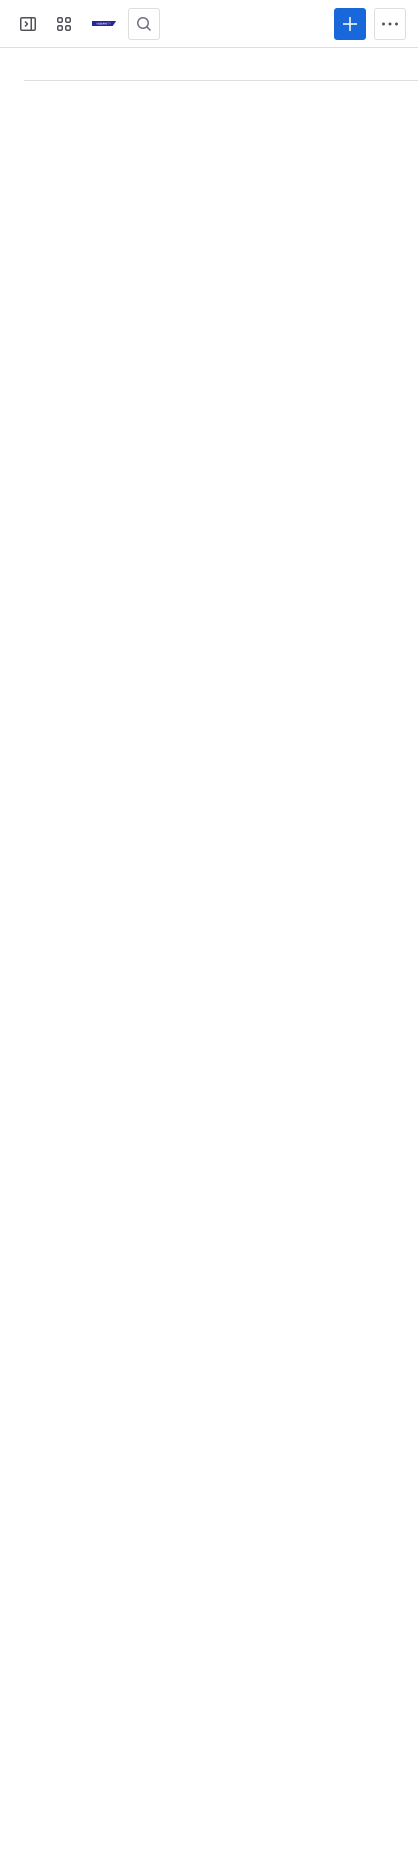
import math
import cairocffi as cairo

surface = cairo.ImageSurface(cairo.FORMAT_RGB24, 418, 1859)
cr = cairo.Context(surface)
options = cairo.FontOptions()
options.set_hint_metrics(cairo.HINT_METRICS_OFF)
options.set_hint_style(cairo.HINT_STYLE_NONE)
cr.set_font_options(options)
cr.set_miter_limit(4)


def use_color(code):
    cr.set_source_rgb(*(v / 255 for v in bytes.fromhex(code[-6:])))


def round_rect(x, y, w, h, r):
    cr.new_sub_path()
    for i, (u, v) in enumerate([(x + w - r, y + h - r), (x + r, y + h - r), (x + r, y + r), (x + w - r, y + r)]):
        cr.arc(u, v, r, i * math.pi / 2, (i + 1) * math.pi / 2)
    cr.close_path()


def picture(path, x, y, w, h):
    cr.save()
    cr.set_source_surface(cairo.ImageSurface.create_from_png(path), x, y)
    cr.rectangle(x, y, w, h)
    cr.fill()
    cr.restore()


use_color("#ffffff")
cr.paint()
use_color("#dddedd")
cr.rectangle(0, 47, 418, 1)
cr.fill()
picture("img1.png", 20, 17, 16, 14)
picture("img2.png", 57, 17, 14, 14)
picture("img3.png", 92, 21, 24, 5)
picture("img4.png", 137, 17, 14, 14)
round_rect(128.5, 8.5, 31, 31, 2.5)
cr.set_line_width(1)
cr.stroke()
use_color("#1868db")
round_rect(334, 8, 32, 32, 3)
cr.fill()
picture("img5.png", 343, 17, 14, 14)
picture("img6.png", 382, 22, 16, 4)
round_rect(374.5, 8.5, 31, 31, 2.5)
use_color("#dddedd")
cr.stroke()
cr.rectangle(24, 80, 394, 1)
cr.fill()
surface.write_to_png("result.png")
